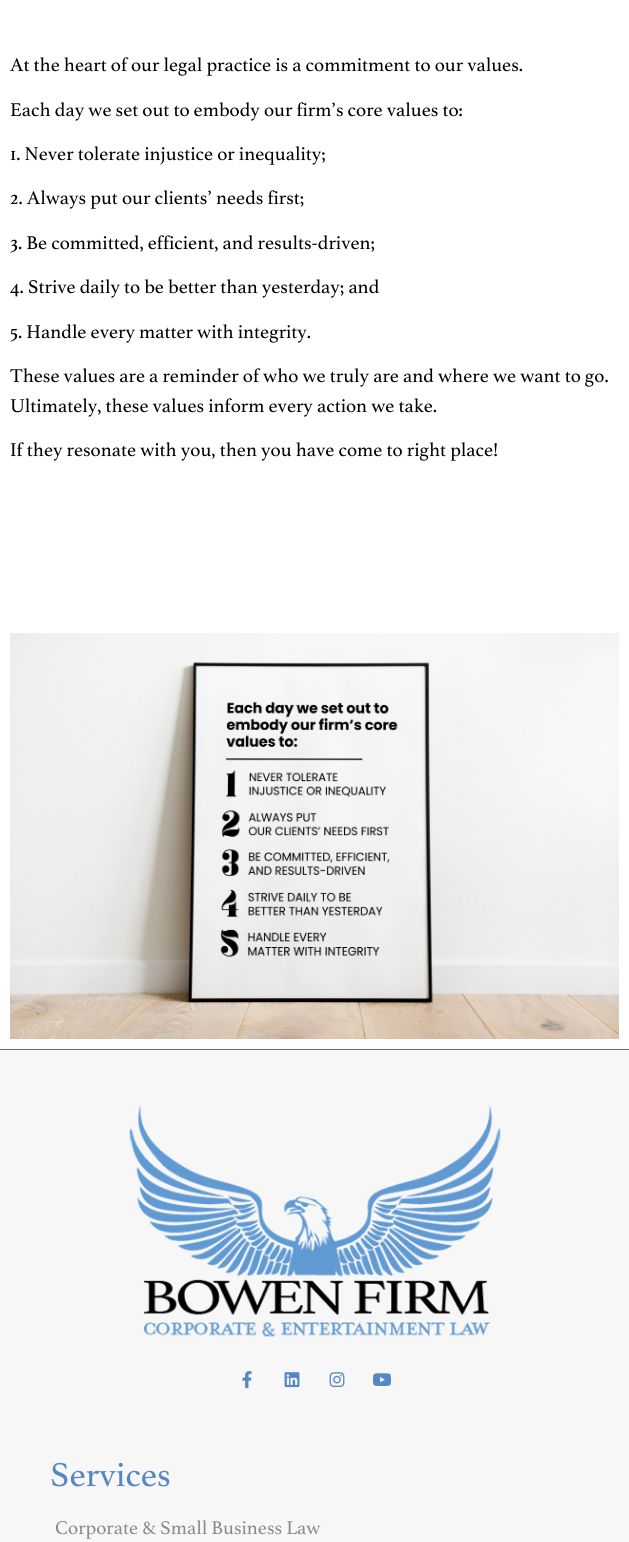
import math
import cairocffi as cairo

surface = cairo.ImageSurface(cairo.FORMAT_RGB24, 629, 1542)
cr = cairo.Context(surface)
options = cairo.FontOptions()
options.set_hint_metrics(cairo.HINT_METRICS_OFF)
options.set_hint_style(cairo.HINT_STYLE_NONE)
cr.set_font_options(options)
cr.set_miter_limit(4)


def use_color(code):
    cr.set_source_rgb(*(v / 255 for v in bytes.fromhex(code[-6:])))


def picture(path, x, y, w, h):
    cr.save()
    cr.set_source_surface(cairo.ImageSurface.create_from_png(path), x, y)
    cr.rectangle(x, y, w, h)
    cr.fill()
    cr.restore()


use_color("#ffffff")
cr.paint()
cr.select_font_face("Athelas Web")
cr.set_font_size(20)
use_color("#000000")
cr.move_to(10, 71)
cr.show_text("At the heart of our legal practice is a commitment to our values.")
cr.move_to(10, 116)
cr.show_text("Each day we set out to embody our firm’s core values to:")
cr.move_to(10, 160)
cr.show_text("1. Never tolerate injustice or inequality;")
cr.move_to(10, 204)
cr.show_text("2. Always put our clients’ needs first;")
cr.move_to(10, 249)
cr.show_text("3. Be committed, efficient, and results-driven;")
cr.move_to(10, 293)
cr.show_text("4. Strive daily to be better than yesterday; and")
cr.move_to(10, 338)
cr.show_text("5. Handle every matter with integrity.")
cr.move_to(10, 382)
cr.show_text("These values are a reminder of who we truly are and where we want to go.")
cr.move_to(10, 412)
cr.show_text("Ultimately, these values inform every action we take.")
cr.move_to(10, 456)
cr.show_text("If they resonate with you, then you have come to right place!")
picture("img1.png", 10, 633, 609, 406)
use_color("#f7f7f7")
cr.rectangle(0, 1050, 629, 492)
cr.fill()
use_color("#6a6a6a")
cr.rectangle(0, 1049, 629, 1)
cr.fill()
picture("img2.png", 129, 1105, 372, 232)
picture("img3.png", 242, 1371, 10, 18)
picture("img4.png", 284, 1372, 16, 16)
picture("img5.png", 329, 1372, 16, 16)
picture("img6.png", 372, 1373, 20, 13)
cr.set_font_size(36)
use_color("#5687c5")
cr.move_to(50, 1486)
cr.show_text("Services")
cr.set_font_size(20)
use_color("#8a8a8a")
cr.move_to(55, 1534)
cr.show_text("Corporate & Small Business Law")
surface.write_to_png("result.png")
